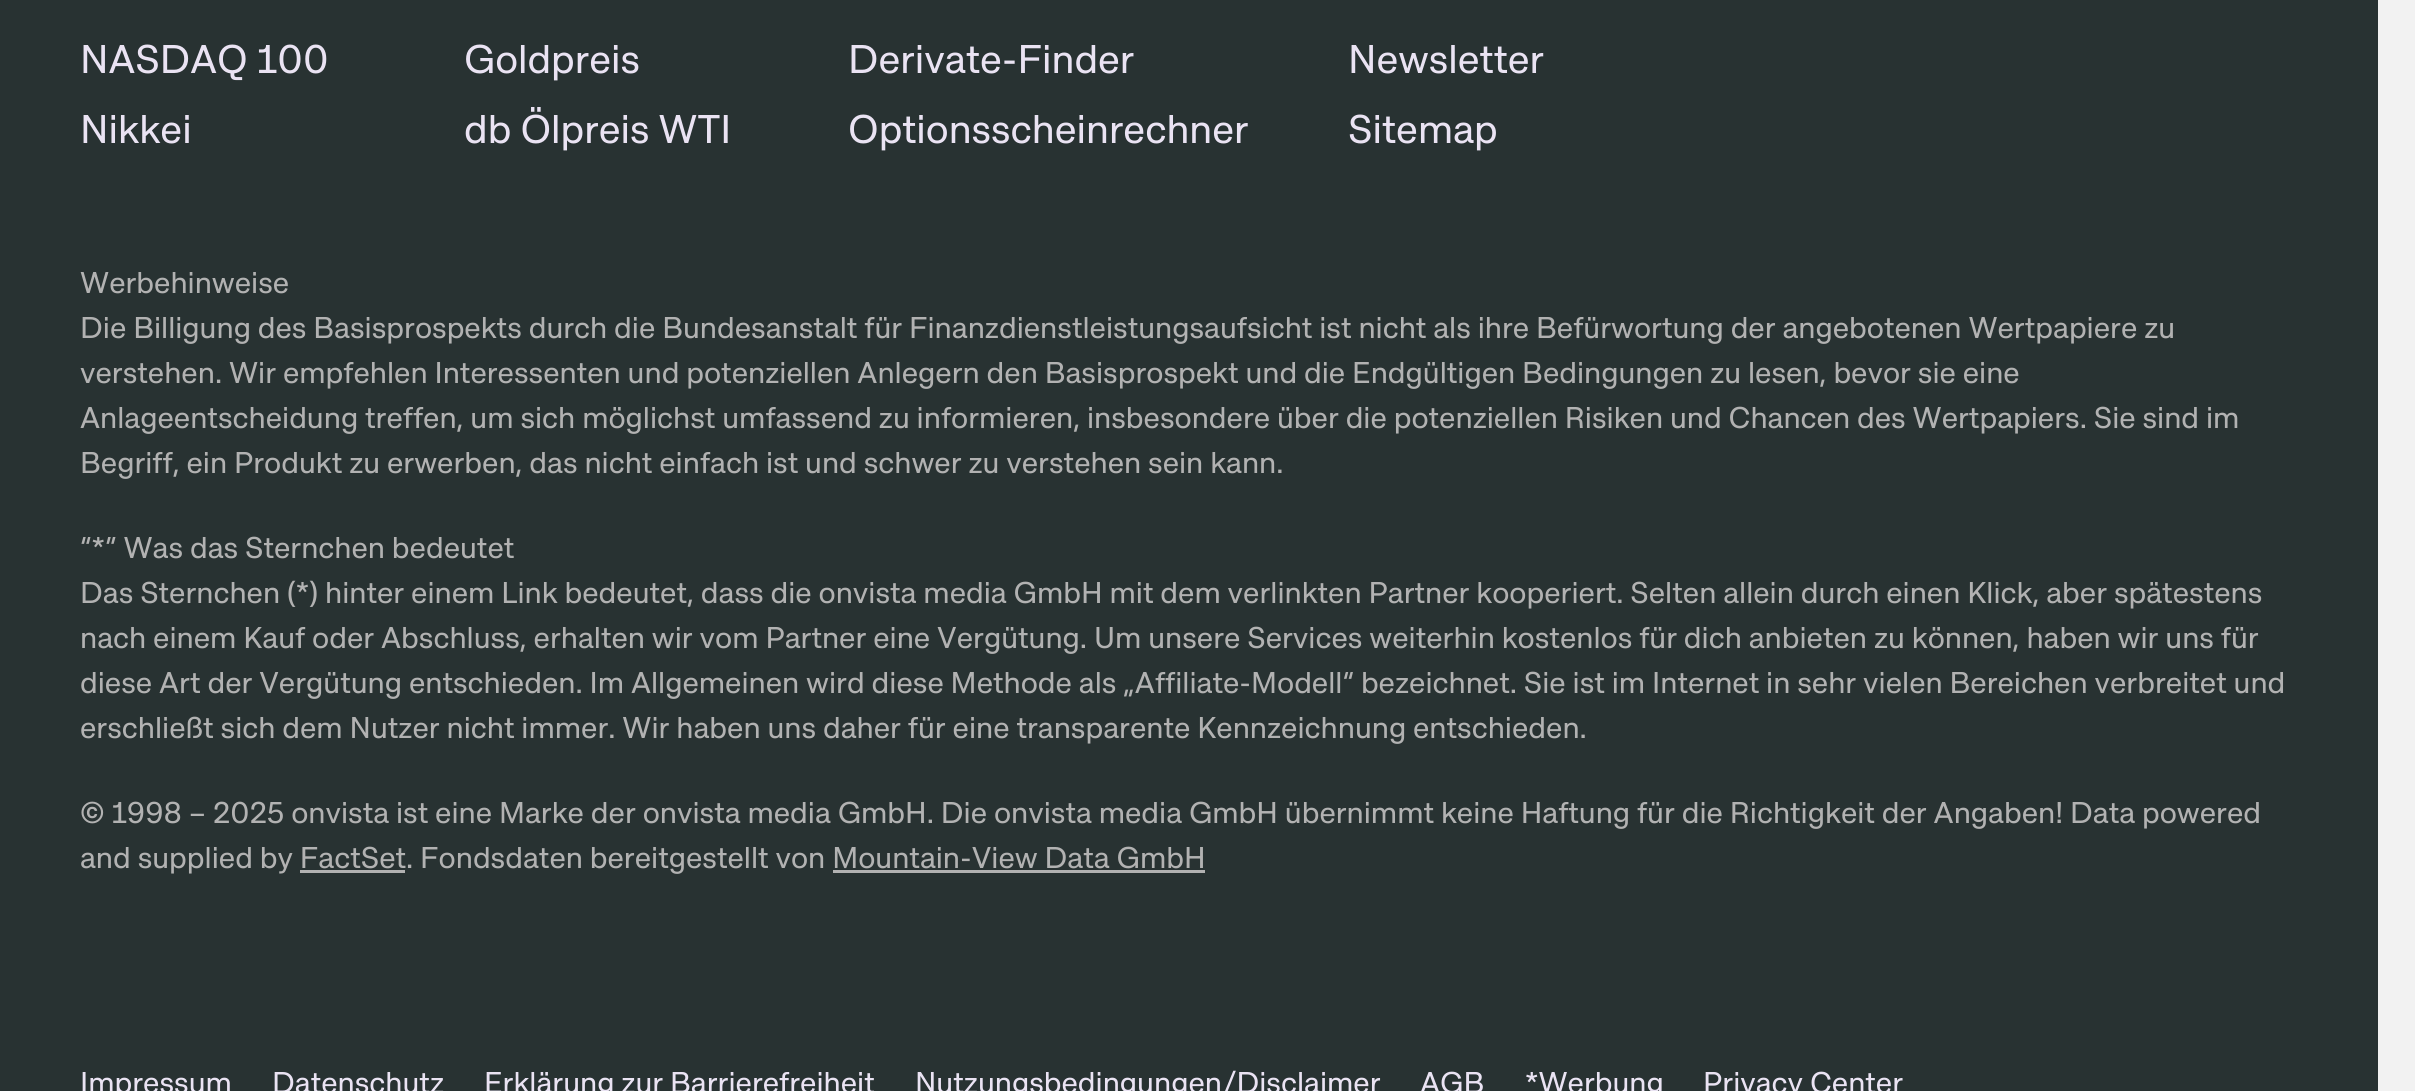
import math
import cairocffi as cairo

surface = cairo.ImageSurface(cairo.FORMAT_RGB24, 2415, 1091)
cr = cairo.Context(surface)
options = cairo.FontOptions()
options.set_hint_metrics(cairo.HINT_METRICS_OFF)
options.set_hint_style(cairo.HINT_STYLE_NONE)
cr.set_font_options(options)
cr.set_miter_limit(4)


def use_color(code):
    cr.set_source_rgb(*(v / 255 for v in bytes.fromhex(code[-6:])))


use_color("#f2f2f2")
cr.paint()
use_color("#283232")
cr.rectangle(0, 0, 2378, 1091)
cr.fill()
cr.select_font_face("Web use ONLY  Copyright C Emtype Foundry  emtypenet")
cr.set_font_size(40)
use_color("#eae3f3")
cr.move_to(80, 73)
cr.show_text("NASDAQ 100")
cr.move_to(464, 73)
cr.show_text("Goldpreis")
cr.move_to(848, 73)
cr.show_text("Derivate-Finder")
cr.move_to(80, 143)
cr.show_text("Nikkei")
cr.move_to(464, 143)
cr.show_text("db Ölpreis WTI")
cr.move_to(848, 143)
cr.show_text("Optionsscheinrechner")
cr.move_to(1348, 73)
cr.show_text("Newsletter")
cr.move_to(1348, 143)
cr.show_text("Sitemap")
cr.set_font_size(30)
use_color("#b2b2b2")
cr.move_to(80, 293)
cr.show_text("Werbehinweise")
cr.move_to(80, 338)
cr.show_text("Die Billigung des Basisprospekts durch die Bundesanstalt für Finanzdienstleistungsaufsicht ist nicht als ihre Befürwortung der angebotenen Wertpapiere zu")
cr.move_to(80, 383)
cr.show_text("verstehen. Wir empfehlen Interessenten und potenziellen Anlegern den Basisprospekt und die Endgültigen Bedingungen zu lesen, bevor sie eine")
cr.move_to(80, 428)
cr.show_text("Anlageentscheidung treffen, um sich möglichst umfassend zu informieren, insbesondere über die potenziellen Risiken und Chancen des Wertpapiers. Sie sind im")
cr.move_to(80, 473)
cr.show_text("Begriff, ein Produkt zu erwerben, das nicht einfach ist und schwer zu verstehen sein kann.")
cr.move_to(80, 558)
cr.show_text("“*” Was das Sternchen bedeutet")
cr.move_to(80, 603)
cr.show_text("Das Sternchen (*) hinter einem Link bedeutet, dass die onvista media GmbH mit dem verlinkten Partner kooperiert. Selten allein durch einen Klick, aber spätestens")
cr.move_to(80, 648)
cr.show_text("nach einem Kauf oder Abschluss, erhalten wir vom Partner eine Vergütung. Um unsere Services weiterhin kostenlos für dich anbieten zu können, haben wir uns für")
cr.move_to(80, 693)
cr.show_text("diese Art der Vergütung entschieden. Im Allgemeinen wird diese Methode als „Affiliate-Modell“ bezeichnet. Sie ist im Internet in sehr vielen Bereichen verbreitet und")
cr.move_to(80, 738)
cr.show_text("erschließt sich dem Nutzer nicht immer. Wir haben uns daher für eine transparente Kennzeichnung entschieden.")
cr.move_to(80, 823)
cr.show_text("© 1998 – 2025 onvista ist eine Marke der onvista media GmbH. Die onvista media GmbH übernimmt keine Haftung für die Richtigkeit der Angaben! Data powered")
cr.move_to(80, 868)
cr.show_text("and supplied by FactSet. Fondsdaten bereitgestellt von Mountain-View Data GmbH")
cr.rectangle(300, 870, 105, 3)
cr.fill()
cr.rectangle(833, 870, 372, 3)
cr.fill()
use_color("#eae3f3")
cr.move_to(80, 1093)
cr.show_text("Impressum")
cr.move_to(272, 1093)
cr.show_text("Datenschutz")
cr.move_to(484, 1093)
cr.show_text("Erklärung zur Barrierefreiheit")
cr.move_to(915, 1093)
cr.show_text("Nutzungsbedingungen/Disclaimer")
cr.move_to(1420, 1093)
cr.show_text("AGB")
cr.move_to(1525, 1093)
cr.show_text("*Werbung")
cr.move_to(1703, 1093)
cr.show_text("Privacy Center")
surface.write_to_png("result.png")
